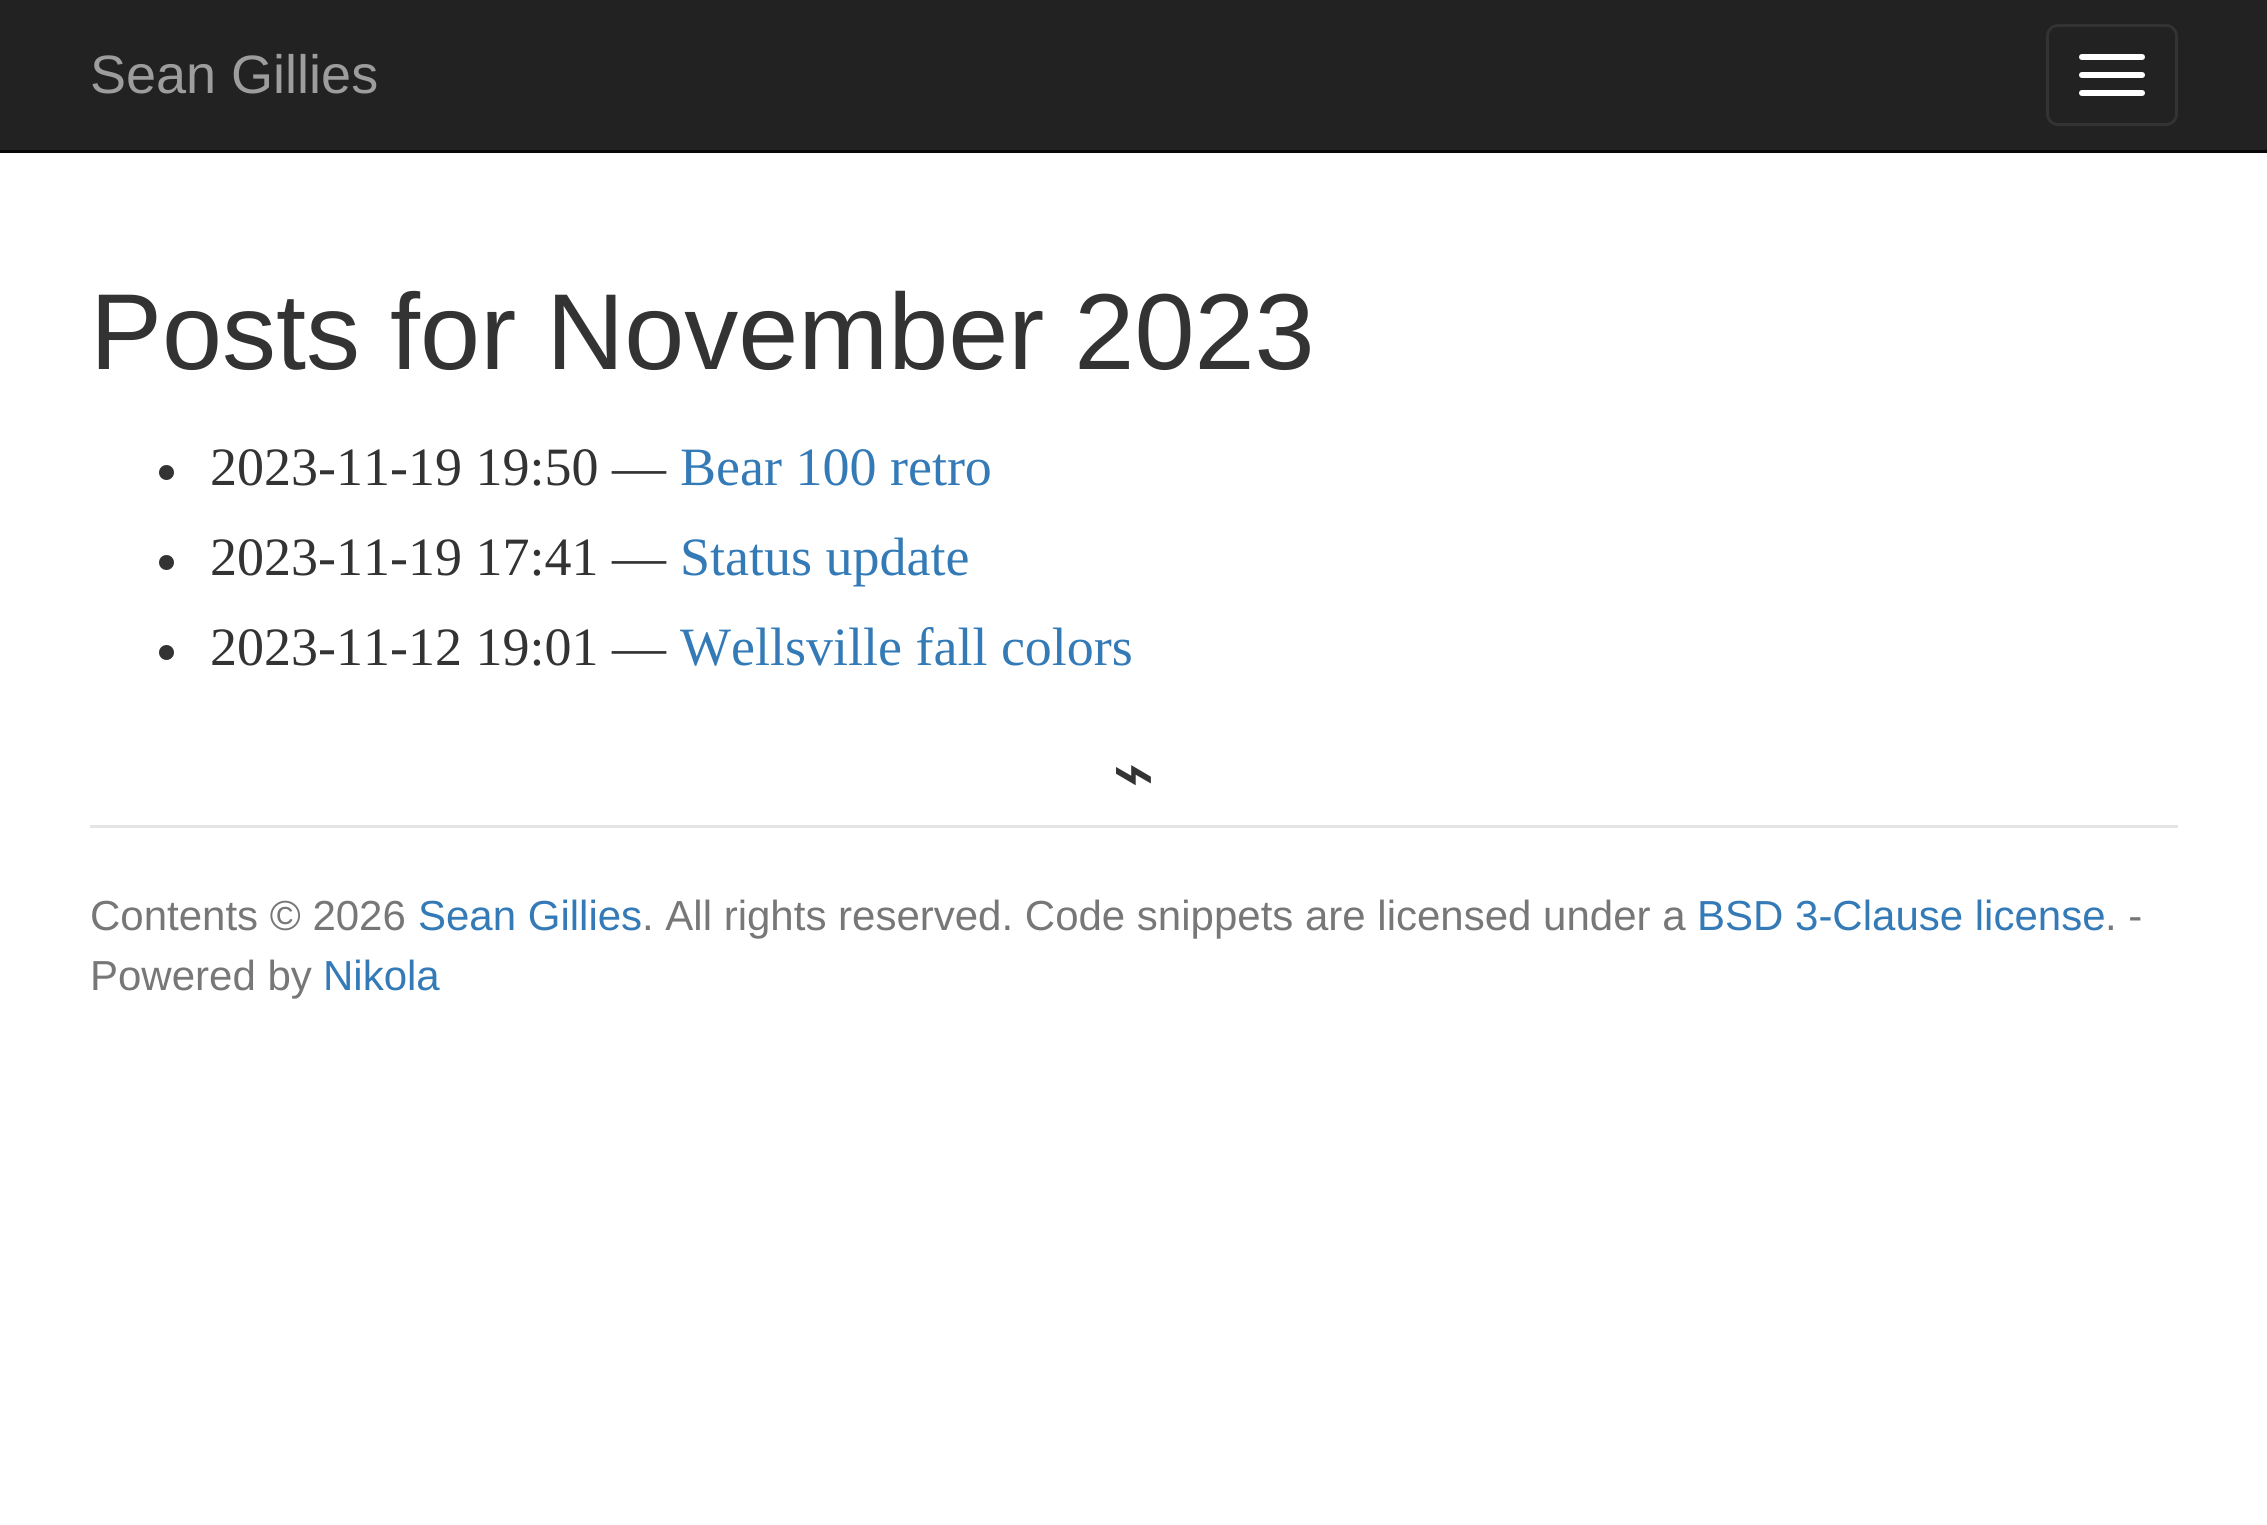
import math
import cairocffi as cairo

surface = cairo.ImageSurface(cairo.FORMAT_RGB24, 2267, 1525)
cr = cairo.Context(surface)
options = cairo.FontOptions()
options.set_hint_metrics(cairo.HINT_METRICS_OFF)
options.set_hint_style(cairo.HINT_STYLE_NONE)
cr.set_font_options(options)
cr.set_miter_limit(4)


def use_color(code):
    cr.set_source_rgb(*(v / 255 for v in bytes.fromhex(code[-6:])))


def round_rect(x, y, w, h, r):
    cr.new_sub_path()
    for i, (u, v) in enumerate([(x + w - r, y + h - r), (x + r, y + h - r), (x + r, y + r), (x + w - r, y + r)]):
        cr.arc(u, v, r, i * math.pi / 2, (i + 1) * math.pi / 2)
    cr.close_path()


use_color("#ffffff")
cr.paint()
use_color("#222222")
cr.rectangle(0, 0, 2267, 150)
cr.fill()
use_color("#080808")
cr.rectangle(0, 150, 2267, 3)
cr.fill()
cr.select_font_face("Liberation Sans")
cr.set_font_size(54)
use_color("#9d9d9d")
cr.move_to(90, 93)
cr.show_text("Sean Gillies")
round_rect(2047.5, 25.5, 129, 99, 10.5)
use_color("#333333")
cr.set_line_width(3)
cr.stroke()
use_color("#ffffff")
round_rect(2079, 54, 66, 6, 3)
cr.fill()
round_rect(2079, 72, 66, 6, 3)
cr.fill()
round_rect(2079, 90, 66, 6, 3)
cr.fill()
cr.set_font_size(108)
use_color("#333333")
cr.move_to(90, 369)
cr.show_text("Posts for November 2023")
cr.new_path()
cr.arc(166.5, 472.5, 7.5, 0, 2 * math.pi)
cr.fill()
cr.select_font_face("Liberation Serif")
cr.set_font_size(54)
cr.move_to(210, 485)
cr.show_text("2023-11-19 19:50 —")
use_color("#337ab7")
cr.move_to(680, 485)
cr.show_text("Bear 100 retro")
use_color("#333333")
cr.new_path()
cr.arc(166.5, 562.5, 7.5, 0, 2 * math.pi)
cr.fill()
cr.move_to(210, 575)
cr.show_text("2023-11-19 17:41 —")
use_color("#337ab7")
cr.move_to(680, 575)
cr.show_text("Status update")
use_color("#333333")
cr.new_path()
cr.arc(166.5, 652.5, 7.5, 0, 2 * math.pi)
cr.fill()
cr.move_to(210, 665)
cr.show_text("2023-11-12 19:01 —")
use_color("#337ab7")
cr.move_to(680, 665)
cr.show_text("Wellsville fall colors")
cr.select_font_face("DejaVu Sans")
cr.set_font_size(72)
use_color("#333333")
cr.move_to(1112, 797)
cr.show_text("⌁")
use_color("#e5e5e5")
cr.rectangle(90, 825, 2088, 3)
cr.fill()
cr.select_font_face("Liberation Sans")
cr.set_font_size(42)
use_color("#777777")
cr.move_to(90, 930)
cr.show_text("Contents © 2026")
use_color("#337ab7")
cr.move_to(418, 930)
cr.show_text("Sean Gillies")
use_color("#777777")
cr.move_to(642, 930)
cr.show_text(". All rights reserved. Code snippets are licensed under a")
use_color("#337ab7")
cr.move_to(1697, 930)
cr.show_text("BSD 3-Clause license")
use_color("#777777")
cr.move_to(2105, 930)
cr.show_text(". -")
cr.move_to(90, 990)
cr.show_text("Powered by")
use_color("#337ab7")
cr.move_to(323, 990)
cr.show_text("Nikola")
surface.write_to_png("result.png")
